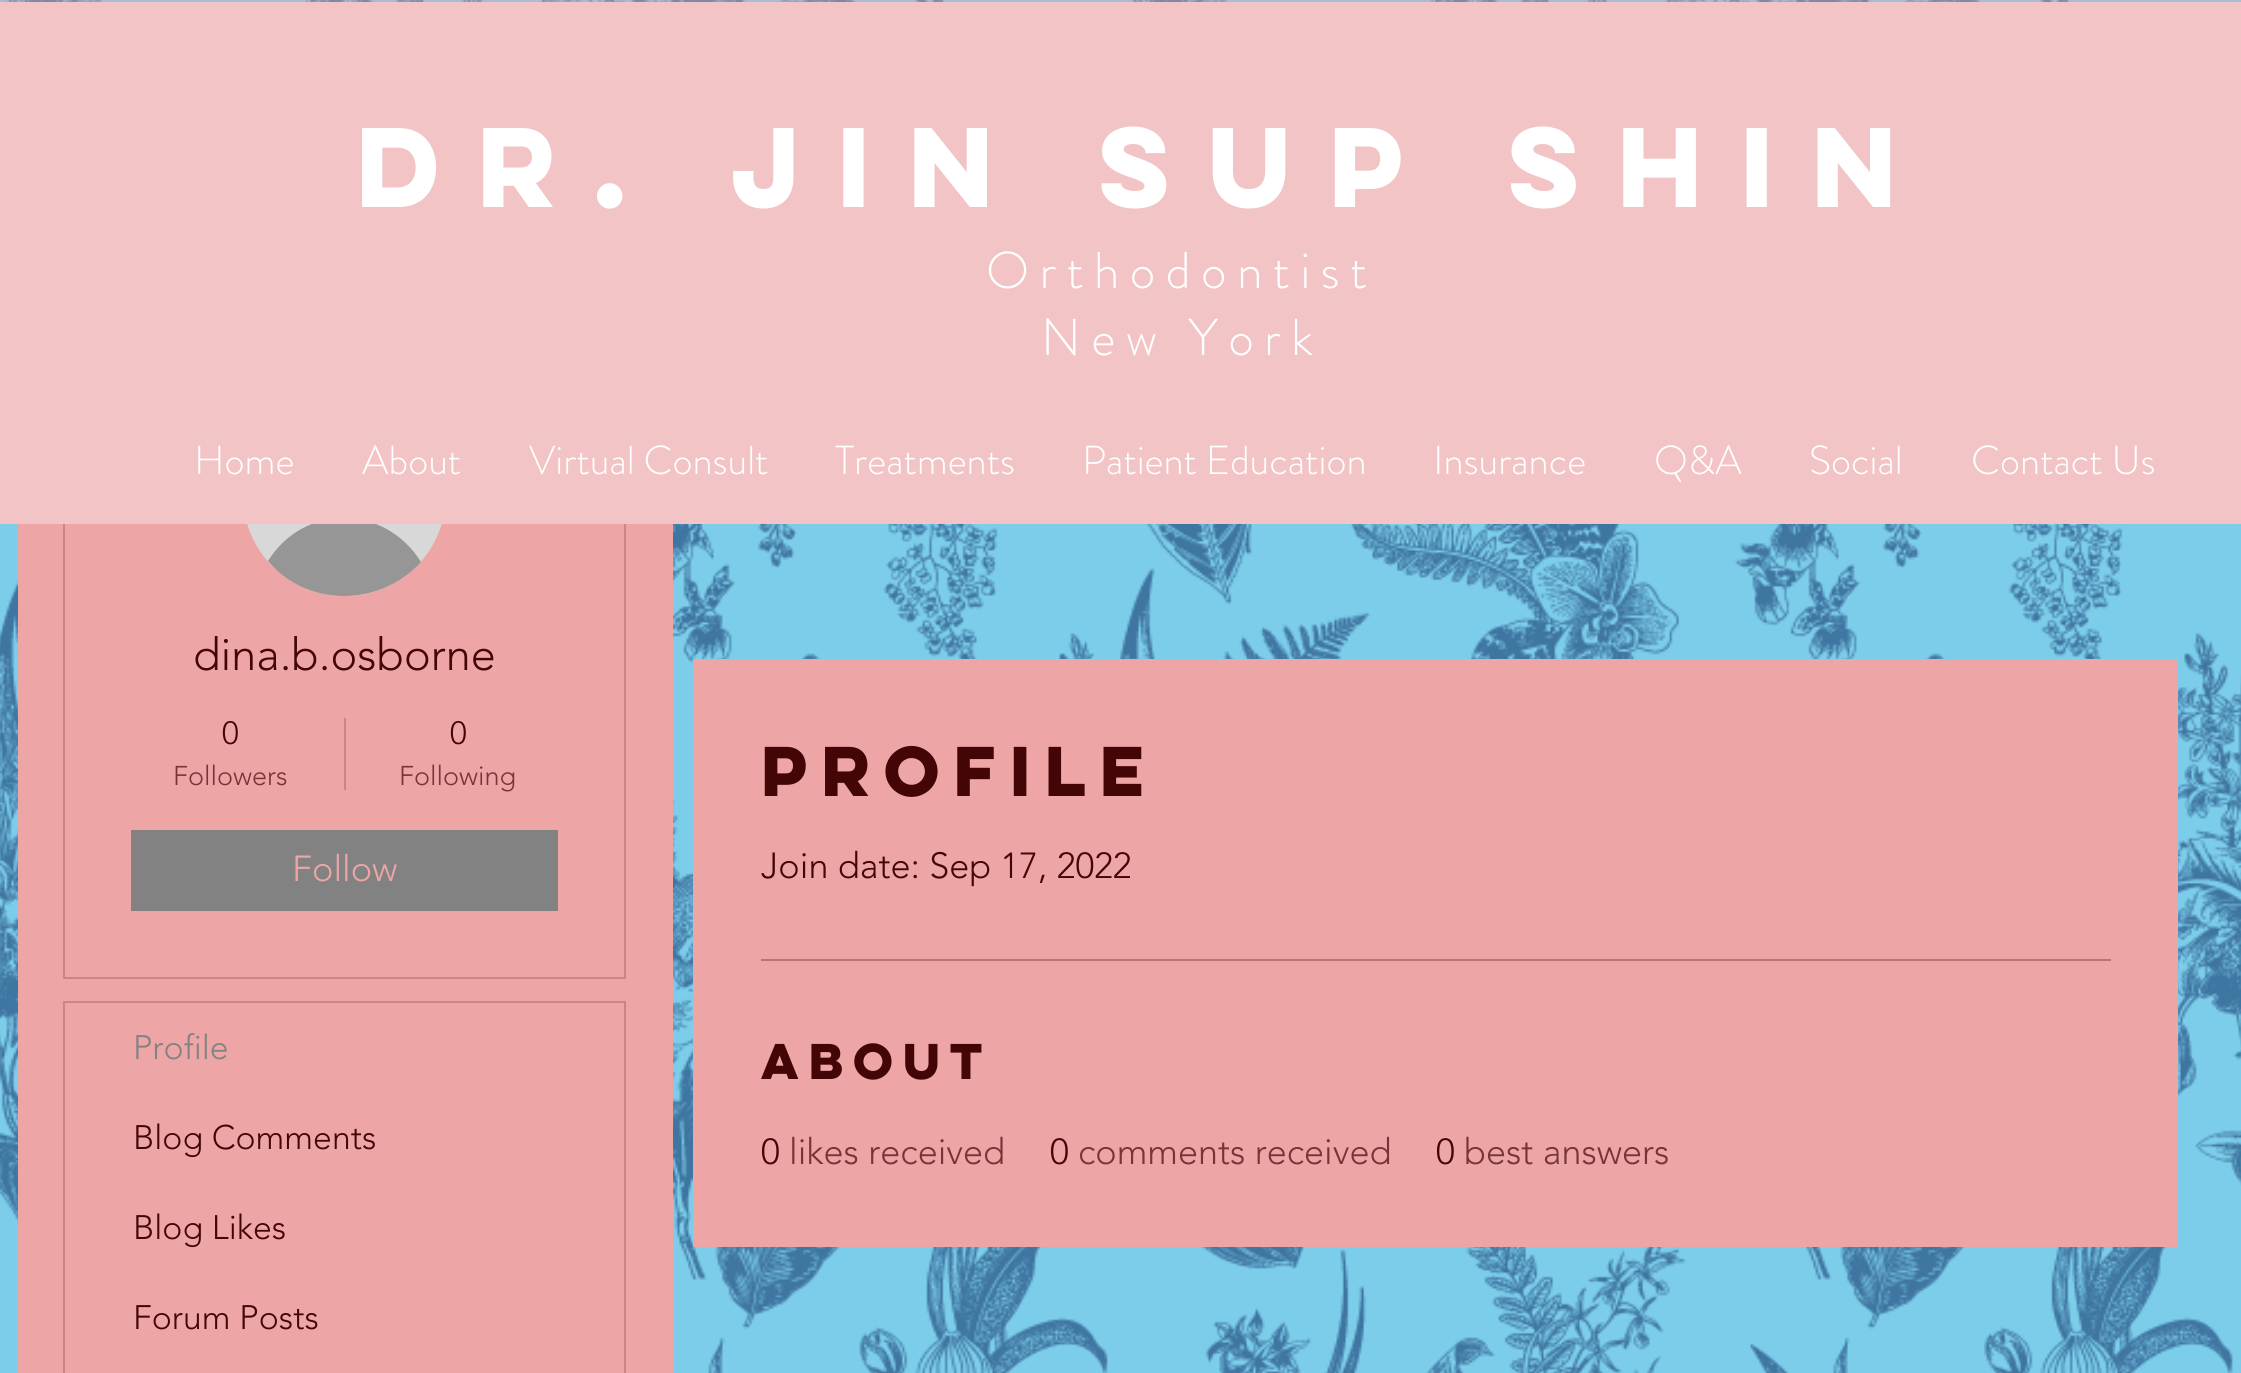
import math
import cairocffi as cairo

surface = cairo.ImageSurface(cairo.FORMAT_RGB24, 2241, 1373)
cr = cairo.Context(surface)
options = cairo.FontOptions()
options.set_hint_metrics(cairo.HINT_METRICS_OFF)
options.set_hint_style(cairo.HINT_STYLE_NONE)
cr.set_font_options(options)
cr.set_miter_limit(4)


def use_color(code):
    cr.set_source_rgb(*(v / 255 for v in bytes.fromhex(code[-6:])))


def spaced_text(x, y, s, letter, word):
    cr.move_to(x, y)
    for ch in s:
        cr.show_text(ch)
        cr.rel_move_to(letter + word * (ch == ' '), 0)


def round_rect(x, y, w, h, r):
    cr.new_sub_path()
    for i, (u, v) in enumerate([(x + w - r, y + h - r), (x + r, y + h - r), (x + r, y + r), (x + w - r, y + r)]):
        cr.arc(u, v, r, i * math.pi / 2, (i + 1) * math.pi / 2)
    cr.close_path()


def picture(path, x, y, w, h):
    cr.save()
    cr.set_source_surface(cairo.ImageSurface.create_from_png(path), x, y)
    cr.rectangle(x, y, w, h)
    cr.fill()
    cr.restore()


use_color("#7ccdea")
cr.paint()
picture("img1.png", 0, 0, 2241, 1373)
cr.set_source_rgba(0.929, 0.647, 0.651, 0.38)
cr.rectangle(0, 0, 2241, 2)
cr.fill()
use_color("#eda5a6")
cr.rectangle(18, 524, 655, 849)
cr.fill()
cr.rectangle(64, 327, 561, 651)
use_color("#cb8586")
cr.stroke()
use_color("#d8d8d8")
round_rect(243, 394, 203, 202, 101)
cr.fill()
use_color("#969696")
cr.new_path()
cr.move_to(344, 596)
cr.curve_to(373, 596, 401, 584, 421, 562)
cr.curve_to(385, 504, 304, 503, 268, 561)
cr.curve_to(286, 583, 314, 596, 344, 596)
cr.close_path()
cr.fill()
use_color("#f2c4c5")
cr.rectangle(0, 2, 2241, 522)
cr.fill()
cr.select_font_face("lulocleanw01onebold", cairo.FONT_SLANT_NORMAL, cairo.FONT_WEIGHT_BOLD)
cr.set_font_size(101.25)
use_color("#ffffff")
spaced_text(356, 207, "dR. JIN SUP SHIN", 15.25, 0)
cr.select_font_face("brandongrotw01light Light")
cr.set_font_size(51.75)
spaced_text(986, 288, "Orthodontist", 10.3, 0)
spaced_text(1041, 355, "New York", 10.3, 0)
cr.set_font_size(40.5)
cr.move_to(194, 474)
cr.show_text("Home")
cr.move_to(362, 474)
cr.show_text("About")
cr.move_to(529, 474)
cr.show_text("Virtual Consult")
cr.move_to(835, 474)
cr.show_text("Treatments")
cr.move_to(1082, 474)
cr.show_text("Patient Education")
cr.move_to(1433, 474)
cr.show_text("Insurance")
cr.move_to(1654, 474)
cr.show_text("Q&A")
cr.move_to(1809, 474)
cr.show_text("Social")
cr.move_to(1971, 474)
cr.show_text("Contact Us")
cr.select_font_face("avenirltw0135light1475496 Light")
cr.set_font_size(45)
use_color("#440506")
cr.move_to(193, 670)
cr.show_text("dina.b.osborne")
cr.set_font_size(32)
cr.move_to(222, 744)
cr.show_text("0")
cr.set_font_size(27)
use_color("#773536")
cr.move_to(173, 785)
cr.show_text("Followers")
use_color("#cb8586")
cr.rectangle(344, 718, 2, 72)
cr.fill()
cr.set_font_size(32)
use_color("#440506")
cr.move_to(450, 744)
cr.show_text("0")
cr.set_font_size(27)
use_color("#773536")
cr.move_to(399, 785)
cr.show_text("Following")
use_color("#828282")
cr.rectangle(131, 830, 427, 81)
cr.fill()
cr.set_font_size(36)
use_color("#eda5a6")
cr.move_to(292, 881)
cr.show_text("Follow")
cr.rectangle(64, 1002, 561, 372)
use_color("#cb8586")
cr.stroke()
cr.set_font_size(33.75)
use_color("#828282")
cr.move_to(133, 1059)
cr.show_text("Profile")
use_color("#440506")
cr.move_to(133, 1149)
cr.show_text("Blog Comments")
cr.move_to(133, 1239)
cr.show_text("Blog Likes")
cr.move_to(133, 1329)
cr.show_text("Forum Posts")
use_color("#eda5a6")
cr.rectangle(693, 659, 1485, 588)
cr.fill()
cr.select_font_face("lulocleanw01onebold", cairo.FONT_SLANT_NORMAL, cairo.FONT_WEIGHT_BOLD)
cr.set_font_size(63)
use_color("#440506")
cr.move_to(761, 796)
cr.show_text("Profile")
cr.select_font_face("avenirltw0135light1475496 Light")
cr.set_font_size(36)
cr.move_to(761, 878)
cr.show_text("Join date: Sep 17, 2022")
use_color("#ba7576")
cr.rectangle(761, 959, 1350, 2)
cr.fill()
cr.select_font_face("lulocleanw01onebold", cairo.FONT_SLANT_NORMAL, cairo.FONT_WEIGHT_BOLD)
cr.set_font_size(45)
use_color("#440506")
cr.move_to(761, 1079)
cr.show_text("About")
cr.select_font_face("avenirltw0135light1475496 Light")
cr.set_font_size(36)
cr.move_to(761, 1164)
cr.show_text("0")
use_color("#773536")
cr.move_to(789, 1164)
cr.show_text("likes received")
use_color("#440506")
cr.move_to(1050, 1164)
cr.show_text("0")
use_color("#773536")
cr.move_to(1078, 1164)
cr.show_text("comments received")
use_color("#440506")
cr.move_to(1436, 1164)
cr.show_text("0")
use_color("#773536")
cr.move_to(1464, 1164)
cr.show_text("best answers")
surface.write_to_png("result.png")
